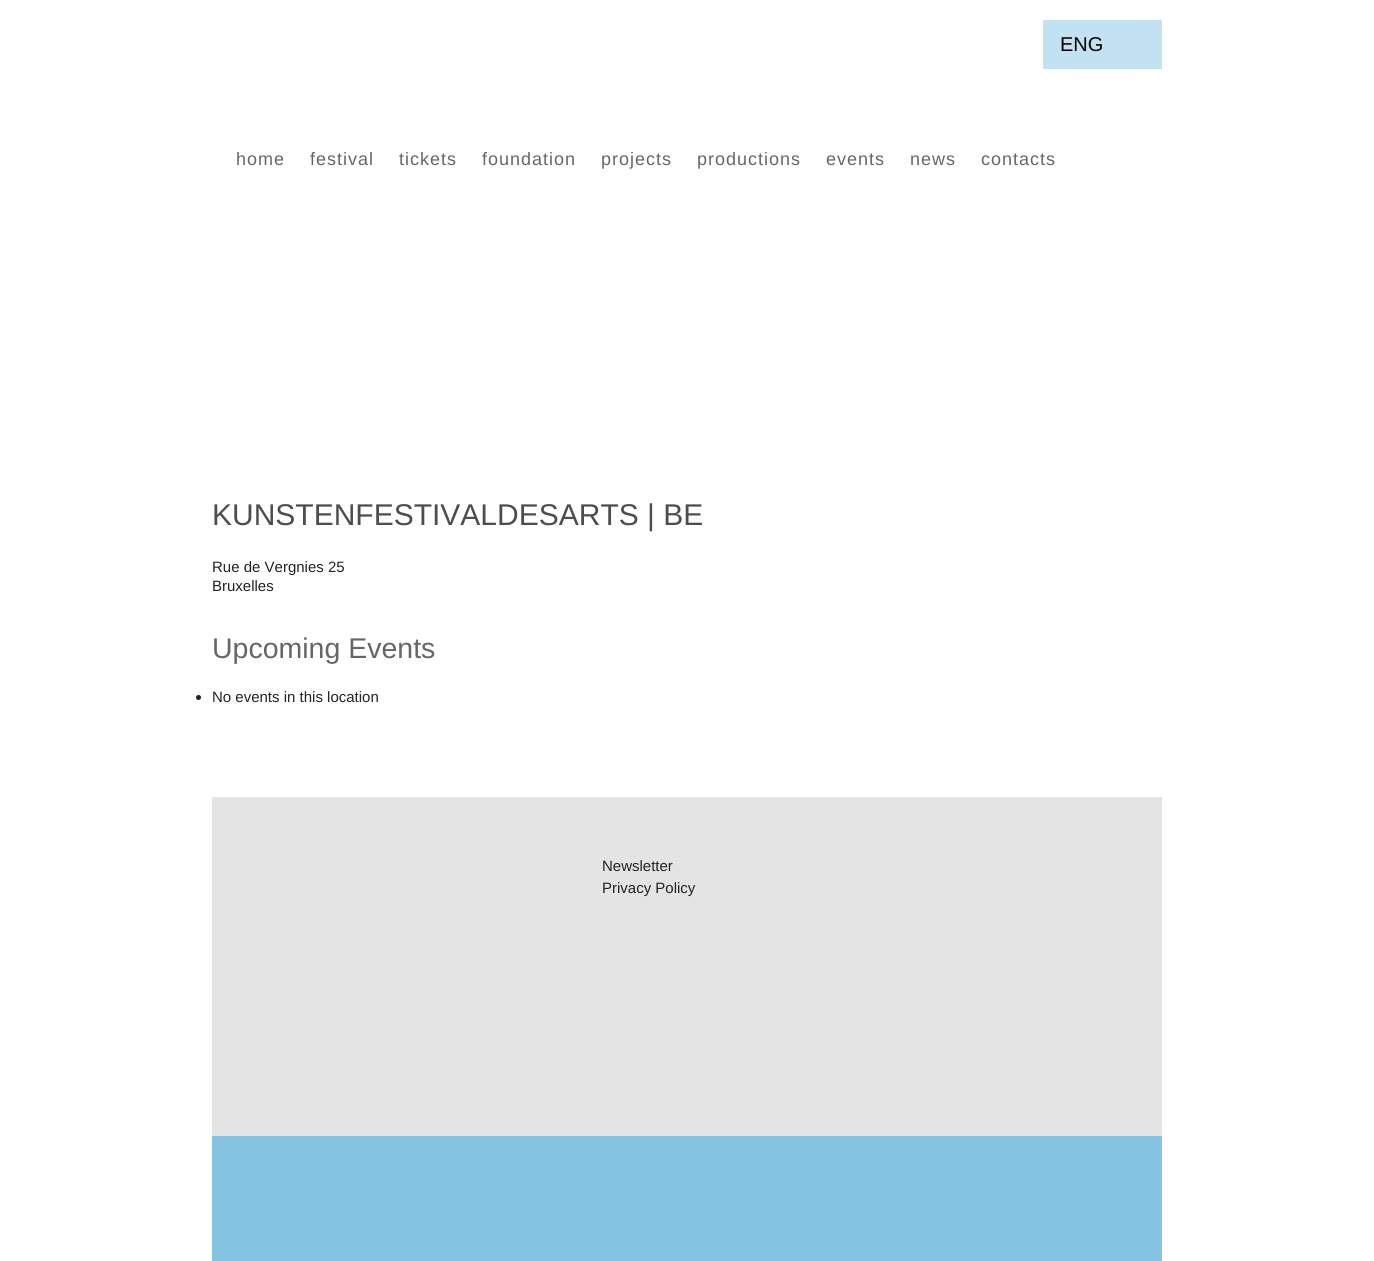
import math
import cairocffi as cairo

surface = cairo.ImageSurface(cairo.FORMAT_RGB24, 1374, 1261)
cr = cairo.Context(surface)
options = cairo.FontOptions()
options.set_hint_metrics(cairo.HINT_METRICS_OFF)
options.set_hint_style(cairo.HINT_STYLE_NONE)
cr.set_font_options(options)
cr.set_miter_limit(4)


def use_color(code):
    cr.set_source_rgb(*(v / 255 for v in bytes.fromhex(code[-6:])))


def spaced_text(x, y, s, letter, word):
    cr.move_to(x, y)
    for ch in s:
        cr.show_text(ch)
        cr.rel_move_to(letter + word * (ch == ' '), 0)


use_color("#ffffff")
cr.paint()
use_color("#c2e1f1")
cr.rectangle(1043, 20, 119, 49)
cr.fill()
cr.select_font_face("Liberation Sans")
cr.set_font_size(20)
use_color("#000000")
cr.move_to(1060, 51)
cr.show_text("ENG")
cr.set_font_size(18)
use_color("#666666")
spaced_text(236, 165, "home", 1, 0)
spaced_text(310, 165, "festival", 1, 0)
spaced_text(399, 165, "tickets", 1, 0)
spaced_text(482, 165, "foundation", 1, 0)
spaced_text(601, 165, "projects", 1, 0)
spaced_text(697, 165, "productions", 1, 0)
spaced_text(826, 165, "events", 1, 0)
spaced_text(910, 165, "news", 1, 0)
spaced_text(981, 165, "contacts", 1, 0)
cr.set_font_size(30)
use_color("#4d4d4d")
cr.move_to(212, 525)
cr.show_text("KUNSTENFESTIVALDESARTS | BE")
cr.set_font_size(15)
use_color("#222222")
cr.move_to(212, 572)
cr.show_text("Rue de Vergnies 25")
cr.move_to(212, 591)
cr.show_text("Bruxelles")
cr.set_font_size(28.5)
use_color("#666666")
cr.move_to(212, 658)
cr.show_text("Upcoming Events")
use_color("#212121")
cr.new_path()
cr.arc(198.5, 697.5, 2.5, 0, 2 * math.pi)
cr.fill()
cr.set_font_size(15)
use_color("#222222")
cr.move_to(212, 702)
cr.show_text("No events in this location")
use_color("#e4e4e4")
cr.rectangle(212, 797, 950, 339)
cr.fill()
use_color("#222222")
cr.move_to(602, 871)
cr.show_text("Newsletter")
cr.move_to(602, 893)
cr.show_text("Privacy Policy")
use_color("#85c3e2")
cr.rectangle(212, 1136, 950, 125)
cr.fill()
surface.write_to_png("result.png")
